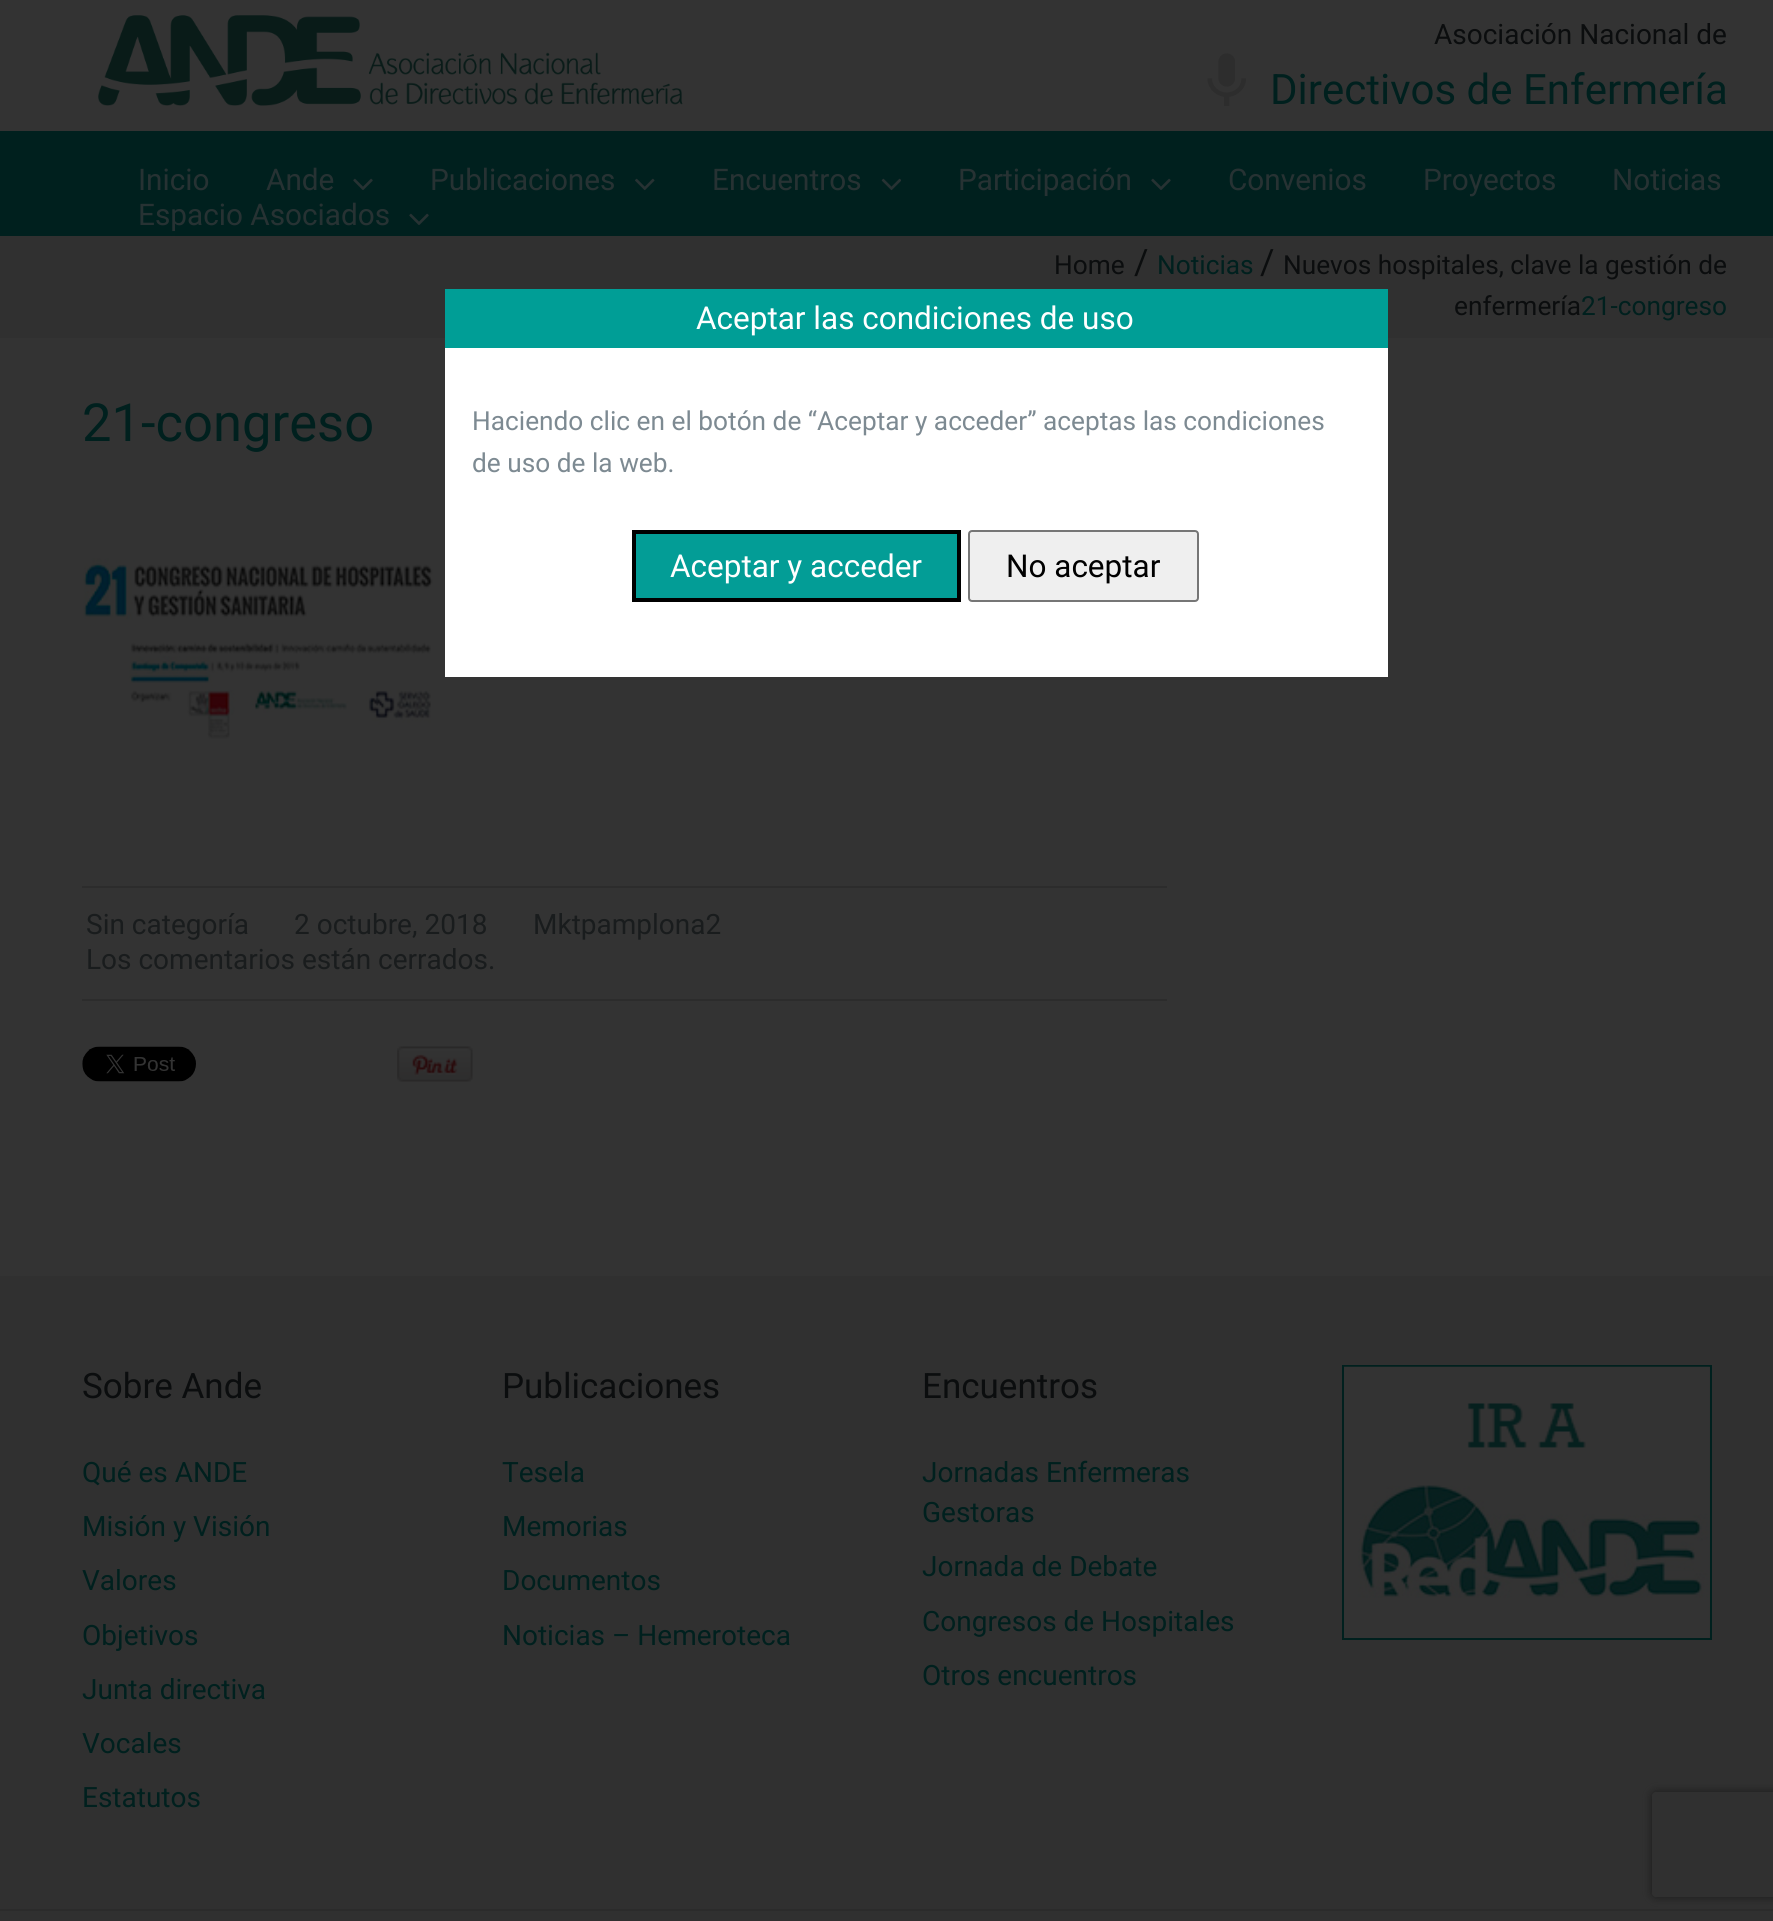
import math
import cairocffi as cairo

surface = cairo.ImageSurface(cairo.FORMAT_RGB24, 1773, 1921)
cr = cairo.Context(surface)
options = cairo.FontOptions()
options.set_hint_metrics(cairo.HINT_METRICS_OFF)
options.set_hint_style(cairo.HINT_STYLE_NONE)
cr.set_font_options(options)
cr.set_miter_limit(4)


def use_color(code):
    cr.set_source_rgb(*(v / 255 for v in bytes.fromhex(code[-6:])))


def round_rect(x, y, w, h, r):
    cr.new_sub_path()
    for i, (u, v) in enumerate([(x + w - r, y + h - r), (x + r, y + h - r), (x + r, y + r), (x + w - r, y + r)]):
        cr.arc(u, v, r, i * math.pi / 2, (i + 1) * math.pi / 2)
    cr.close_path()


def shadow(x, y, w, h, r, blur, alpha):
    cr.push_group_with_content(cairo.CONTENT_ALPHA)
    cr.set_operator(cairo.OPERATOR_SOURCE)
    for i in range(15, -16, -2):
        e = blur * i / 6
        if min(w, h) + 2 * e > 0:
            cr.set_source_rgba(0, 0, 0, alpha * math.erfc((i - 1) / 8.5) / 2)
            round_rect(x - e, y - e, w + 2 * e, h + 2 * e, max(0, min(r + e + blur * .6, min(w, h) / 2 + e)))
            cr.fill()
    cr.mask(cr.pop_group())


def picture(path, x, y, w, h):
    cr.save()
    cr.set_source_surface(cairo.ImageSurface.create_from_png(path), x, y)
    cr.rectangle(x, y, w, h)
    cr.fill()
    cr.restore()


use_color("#303030")
cr.paint()
use_color("#333333")
cr.rectangle(0, 0, 1773, 131)
cr.fill()
picture("img1.png", 98, 15, 585, 91)
cr.select_font_face("Roboto")
cr.set_font_size(28)
use_color("#0b0d0e")
cr.move_to(1434, 44)
cr.show_text("Asociación Nacional de")
picture("img2.png", 1207, 53, 39, 53)
cr.set_font_size(42)
use_color("#00201e")
cr.move_to(1270, 104)
cr.show_text("Directivos de Enfermería")
cr.rectangle(0, 131, 1773, 105)
cr.fill()
cr.set_font_size(29.75)
use_color("#273233")
cr.move_to(138, 190)
cr.show_text("Inicio")
cr.move_to(266, 190)
cr.show_text("Ande")
picture("img3.png", 353, 178, 20, 12)
cr.move_to(430, 190)
cr.show_text("Publicaciones")
picture("img4.png", 635, 178, 20, 13)
cr.move_to(712, 190)
cr.show_text("Encuentros")
picture("img5.png", 881, 178, 20, 13)
cr.move_to(958, 190)
cr.show_text("Participación")
picture("img3.png", 1151, 178, 20, 12)
cr.move_to(1228, 190)
cr.show_text("Convenios")
cr.move_to(1423, 190)
cr.show_text("Proyectos")
cr.move_to(1612, 190)
cr.show_text("Noticias")
cr.move_to(138, 225)
cr.show_text("Espacio Asociados")
picture("img3.png", 409, 213, 20, 12)
use_color("#333333")
cr.rectangle(0, 338, 1773, 938)
cr.fill()
cr.set_font_size(26.25)
use_color("#0b0d0e")
cr.move_to(1054, 274)
cr.show_text("Home")
cr.set_font_size(35)
cr.move_to(1134, 274)
cr.show_text("/")
cr.set_font_size(26.25)
use_color("#00201e")
cr.move_to(1157, 274)
cr.show_text("Noticias")
cr.set_font_size(35)
use_color("#0b0d0e")
cr.move_to(1260, 274)
cr.show_text("/")
cr.set_font_size(26.25)
cr.move_to(1283, 274)
cr.show_text("Nuevos hospitales, clave la gestión de")
cr.move_to(1454, 315)
cr.show_text("enfermería")
use_color("#00201e")
cr.move_to(1581, 315)
cr.show_text("21-congreso")
cr.set_font_size(52.5)
cr.move_to(82, 441)
cr.show_text("21-congreso")
picture("img6.png", 83, 558, 350, 181)
use_color("#2c2c2c")
cr.rectangle(82, 886, 1085, 2)
cr.fill()
cr.rectangle(82, 999, 1085, 2)
cr.fill()
cr.set_font_size(28)
use_color("#191c1d")
cr.move_to(86, 934)
cr.show_text("Sin categoría")
cr.move_to(294, 934)
cr.show_text("2 octubre, 2018")
cr.move_to(533, 934)
cr.show_text("Mktpamplona2")
cr.move_to(86, 969)
cr.show_text("Los comentarios están cerrados.")
picture("img7.png", 82, 1046, 114, 36)
picture("img8.png", 397, 1046, 76, 36)
cr.set_font_size(35)
use_color("#0b0d0e")
cr.move_to(82, 1398)
cr.show_text("Sobre Ande")
cr.set_font_size(28)
use_color("#00201e")
cr.move_to(82, 1482)
cr.show_text("Qué es ANDE")
cr.move_to(82, 1536)
cr.show_text("Misión y Visión")
cr.move_to(82, 1590)
cr.show_text("Valores")
cr.move_to(82, 1645)
cr.show_text("Objetivos")
cr.move_to(82, 1699)
cr.show_text("Junta directiva")
cr.move_to(82, 1753)
cr.show_text("Vocales")
cr.move_to(82, 1807)
cr.show_text("Estatutos")
cr.set_font_size(35)
use_color("#0b0d0e")
cr.move_to(502, 1398)
cr.show_text("Publicaciones")
cr.set_font_size(28)
use_color("#00201e")
cr.move_to(502, 1482)
cr.show_text("Tesela")
cr.move_to(502, 1536)
cr.show_text("Memorias")
cr.move_to(502, 1590)
cr.show_text("Documentos")
cr.move_to(502, 1645)
cr.show_text("Noticias – Hemeroteca")
cr.set_font_size(35)
use_color("#0b0d0e")
cr.move_to(922, 1398)
cr.show_text("Encuentros")
cr.set_font_size(28)
use_color("#00201e")
cr.move_to(922, 1482)
cr.show_text("Jornadas Enfermeras")
cr.move_to(922, 1522)
cr.show_text("Gestoras")
cr.move_to(922, 1576)
cr.show_text("Jornada de Debate")
cr.move_to(922, 1631)
cr.show_text("Congresos de Hospitales")
cr.move_to(922, 1685)
cr.show_text("Otros encuentros")
cr.rectangle(1343, 1366, 368, 273)
cr.stroke()
picture("img9.png", 1344, 1366, 366, 272)
use_color("#2b2b2b")
cr.rectangle(0, 1909, 74, 2)
cr.fill()
cr.save()
cr.set_fill_rule(cairo.FILL_RULE_EVEN_ODD)
cr.new_path()
cr.move_to(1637, 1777)
cr.line_to(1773, 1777)
cr.line_to(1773, 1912)
cr.line_to(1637, 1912)
cr.close_path()
cr.move_to(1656, 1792)
cr.line_to(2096, 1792)
cr.curve_to(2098, 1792, 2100, 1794, 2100, 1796)
cr.line_to(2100, 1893)
cr.curve_to(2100, 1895, 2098, 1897, 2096, 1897)
cr.line_to(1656, 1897)
cr.curve_to(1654, 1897, 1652, 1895, 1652, 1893)
cr.line_to(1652, 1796)
cr.curve_to(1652, 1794, 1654, 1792, 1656, 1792)
cr.close_path()
cr.clip()
use_color("#1a1a1a")
shadow(1652, 1792, 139, 105, 4, 4.5, 1)
cr.restore()
cr.rectangle(74, 1909, 1699, 2)
cr.fill()
use_color("#ffffff")
cr.rectangle(445, 348, 943, 329)
cr.fill()
use_color("#009e96")
cr.rectangle(445, 289, 943, 59)
cr.fill()
cr.set_font_size(31.5)
use_color("#ffffff")
cr.move_to(696, 329)
cr.show_text("Aceptar las condiciones de uso")
cr.set_font_size(26.25)
use_color("#7d8a92")
cr.move_to(472, 430)
cr.show_text("Haciendo clic en el botón de “Aceptar y acceder” aceptas las condiciones")
cr.move_to(472, 472)
cr.show_text("de uso de la web.")
use_color("#039d96")
cr.rectangle(634, 532, 325, 68)
cr.fill_preserve()
use_color("#000000")
cr.set_line_width(4)
cr.stroke()
cr.set_font_size(31.5)
use_color("#ffffff")
cr.move_to(670, 577)
cr.show_text("Aceptar y acceder")
use_color("#efefef")
round_rect(969, 531, 229, 70, 3)
cr.fill_preserve()
use_color("#767676")
cr.set_line_width(2)
cr.stroke()
use_color("#000000")
cr.move_to(1006, 577)
cr.show_text("No aceptar")
surface.write_to_png("result.png")
